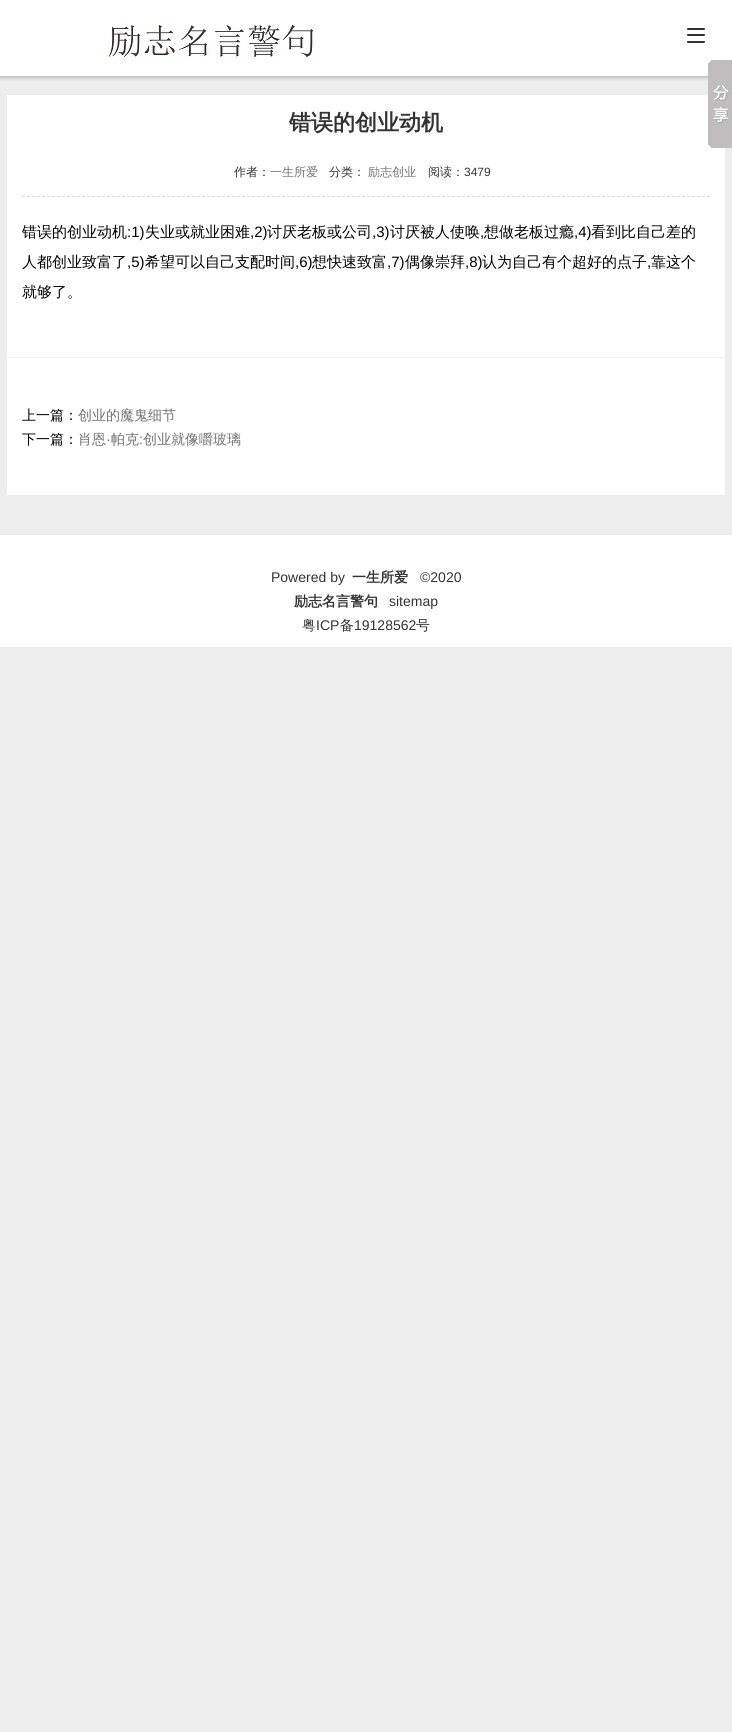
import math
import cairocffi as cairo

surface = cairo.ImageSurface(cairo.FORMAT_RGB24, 732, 1732)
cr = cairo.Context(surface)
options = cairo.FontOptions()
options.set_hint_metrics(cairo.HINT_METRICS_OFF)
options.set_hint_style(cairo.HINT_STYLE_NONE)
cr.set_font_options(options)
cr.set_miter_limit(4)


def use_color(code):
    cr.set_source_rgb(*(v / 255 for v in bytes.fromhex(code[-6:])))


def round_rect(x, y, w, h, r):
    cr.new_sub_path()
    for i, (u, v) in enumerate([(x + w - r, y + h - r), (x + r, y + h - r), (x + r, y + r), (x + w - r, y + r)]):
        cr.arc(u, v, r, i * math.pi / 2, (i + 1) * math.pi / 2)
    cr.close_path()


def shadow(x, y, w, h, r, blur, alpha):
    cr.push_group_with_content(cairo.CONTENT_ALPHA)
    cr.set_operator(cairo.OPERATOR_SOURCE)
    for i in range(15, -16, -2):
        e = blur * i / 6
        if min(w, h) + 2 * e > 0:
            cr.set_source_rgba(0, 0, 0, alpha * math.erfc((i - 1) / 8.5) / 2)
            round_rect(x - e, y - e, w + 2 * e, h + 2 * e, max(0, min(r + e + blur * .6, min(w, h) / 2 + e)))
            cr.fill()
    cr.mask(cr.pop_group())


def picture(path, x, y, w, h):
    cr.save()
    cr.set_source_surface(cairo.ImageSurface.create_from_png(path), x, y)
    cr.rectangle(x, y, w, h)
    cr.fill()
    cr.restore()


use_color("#ededed")
cr.paint()
use_color("#000000")
shadow(0, 1, 732, 76, 0, 2.5, 0.3)
use_color("#ffffff")
cr.rectangle(0, 0, 732, 76)
cr.fill()
picture("img1.png", 108, 24, 205, 33)
use_color("#313131")
round_rect(687, 28, 18, 2, 1)
cr.fill()
round_rect(687, 34, 18, 2, 1)
cr.fill()
round_rect(687, 41, 18, 2, 1)
cr.fill()
use_color("#ffffff")
cr.rectangle(7, 95, 718, 400)
cr.fill()
cr.new_path()
cr.move_to(22, 196.5)
cr.line_to(710, 196.5)
use_color("#dddddd")
cr.set_line_width(1)
cr.set_dash([3, 2])
cr.stroke()
cr.select_font_face("WenQuanYi Zen Hei", cairo.FONT_SLANT_NORMAL, cairo.FONT_WEIGHT_BOLD)
cr.set_font_size(22)
use_color("#333333")
cr.move_to(289, 130)
cr.show_text("错误的创业动机")
cr.select_font_face("WenQuanYi Zen Hei Medium")
cr.set_font_size(12)
cr.move_to(234, 176)
cr.show_text("作者：")
use_color("#737070")
cr.move_to(270, 176)
cr.show_text("一生所爱")
use_color("#333333")
cr.move_to(329, 176)
cr.show_text("分类：")
use_color("#737070")
cr.move_to(368, 176)
cr.show_text("励志创业")
use_color("#333333")
cr.move_to(428, 176)
cr.show_text("阅读：")
cr.select_font_face("Liberation Sans")
cr.move_to(464, 176)
cr.show_text("3479")
cr.select_font_face("WenQuanYi Zen Hei Medium")
cr.set_font_size(15)
use_color("#000000")
cr.move_to(22, 237)
cr.show_text("错误的创业动机")
cr.select_font_face("Liberation Sans")
cr.move_to(127, 237)
cr.show_text(":1)")
cr.select_font_face("WenQuanYi Zen Hei Medium")
cr.move_to(145, 237)
cr.show_text("失业或就业困难")
cr.select_font_face("Liberation Sans")
cr.move_to(250, 237)
cr.show_text(",2)")
cr.select_font_face("WenQuanYi Zen Hei Medium")
cr.move_to(267, 237)
cr.show_text("讨厌老板或公司")
cr.select_font_face("Liberation Sans")
cr.move_to(372, 237)
cr.show_text(",3)")
cr.select_font_face("WenQuanYi Zen Hei Medium")
cr.move_to(390, 237)
cr.show_text("讨厌被人使唤")
cr.select_font_face("Liberation Sans")
cr.move_to(480, 237)
cr.show_text(",")
cr.select_font_face("WenQuanYi Zen Hei Medium")
cr.move_to(484, 237)
cr.show_text("想做老板过瘾")
cr.select_font_face("Liberation Sans")
cr.move_to(574, 237)
cr.show_text(",4)")
cr.select_font_face("WenQuanYi Zen Hei Medium")
cr.move_to(591, 237)
cr.show_text("看到比自己差的")
cr.move_to(22, 267)
cr.show_text("人都创业致富了")
cr.select_font_face("Liberation Sans")
cr.move_to(127, 267)
cr.show_text(",5)")
cr.select_font_face("WenQuanYi Zen Hei Medium")
cr.move_to(145, 267)
cr.show_text("希望可以自己支配时间")
cr.select_font_face("Liberation Sans")
cr.move_to(295, 267)
cr.show_text(",6)")
cr.select_font_face("WenQuanYi Zen Hei Medium")
cr.move_to(312, 267)
cr.show_text("想快速致富")
cr.select_font_face("Liberation Sans")
cr.move_to(387, 267)
cr.show_text(",7)")
cr.select_font_face("WenQuanYi Zen Hei Medium")
cr.move_to(405, 267)
cr.show_text("偶像崇拜")
cr.select_font_face("Liberation Sans")
cr.move_to(465, 267)
cr.show_text(",8)")
cr.select_font_face("WenQuanYi Zen Hei Medium")
cr.move_to(482, 267)
cr.show_text("认为自己有个超好的点子")
cr.select_font_face("Liberation Sans")
cr.move_to(647, 267)
cr.show_text(",")
cr.select_font_face("WenQuanYi Zen Hei Medium")
cr.move_to(651, 267)
cr.show_text("靠这个")
cr.move_to(22, 297)
cr.show_text("就够了。")
use_color("#efefef")
cr.rectangle(0, 357, 732, 1)
cr.fill()
cr.set_font_size(14)
use_color("#000000")
cr.move_to(22, 420)
cr.show_text("上一篇：")
use_color("#737070")
cr.move_to(78, 420)
cr.show_text("创业的魔鬼细节")
use_color("#000000")
cr.move_to(22, 444)
cr.show_text("下一篇：")
use_color("#737070")
cr.move_to(78, 444)
cr.show_text("肖恩")
cr.select_font_face("Liberation Sans")
cr.move_to(106, 444)
cr.show_text("·")
cr.select_font_face("WenQuanYi Zen Hei Medium")
cr.move_to(111, 444)
cr.show_text("帕克")
cr.select_font_face("Liberation Sans")
cr.move_to(139, 444)
cr.show_text(":")
cr.select_font_face("WenQuanYi Zen Hei Medium")
cr.move_to(143, 444)
cr.show_text("创业就像嚼玻璃")
use_color("#ffffff")
cr.rectangle(0, 535, 732, 112)
cr.fill()
cr.select_font_face("Liberation Sans")
use_color("#333333")
cr.move_to(271, 582)
cr.show_text("Powered by")
cr.select_font_face("WenQuanYi Zen Hei", cairo.FONT_SLANT_NORMAL, cairo.FONT_WEIGHT_BOLD)
cr.move_to(352, 582)
cr.show_text("一生所爱")
cr.select_font_face("Liberation Sans")
cr.move_to(420, 582)
cr.show_text("©2020")
cr.select_font_face("WenQuanYi Zen Hei", cairo.FONT_SLANT_NORMAL, cairo.FONT_WEIGHT_BOLD)
cr.move_to(294, 606)
cr.show_text("励志名言警句")
cr.select_font_face("Liberation Sans")
cr.move_to(389, 606)
cr.show_text("sitemap")
cr.select_font_face("WenQuanYi Zen Hei Medium")
cr.move_to(302, 630)
cr.show_text("粤")
cr.select_font_face("Liberation Sans")
cr.move_to(316, 630)
cr.show_text("ICP")
cr.select_font_face("WenQuanYi Zen Hei Medium")
cr.move_to(340, 630)
cr.show_text("备")
cr.select_font_face("Liberation Sans")
cr.move_to(354, 630)
cr.show_text("19128562")
cr.select_font_face("WenQuanYi Zen Hei Medium")
cr.move_to(416, 630)
cr.show_text("号")
picture("img2.png", 708, 60, 24, 88)
surface.write_to_png("result.png")
